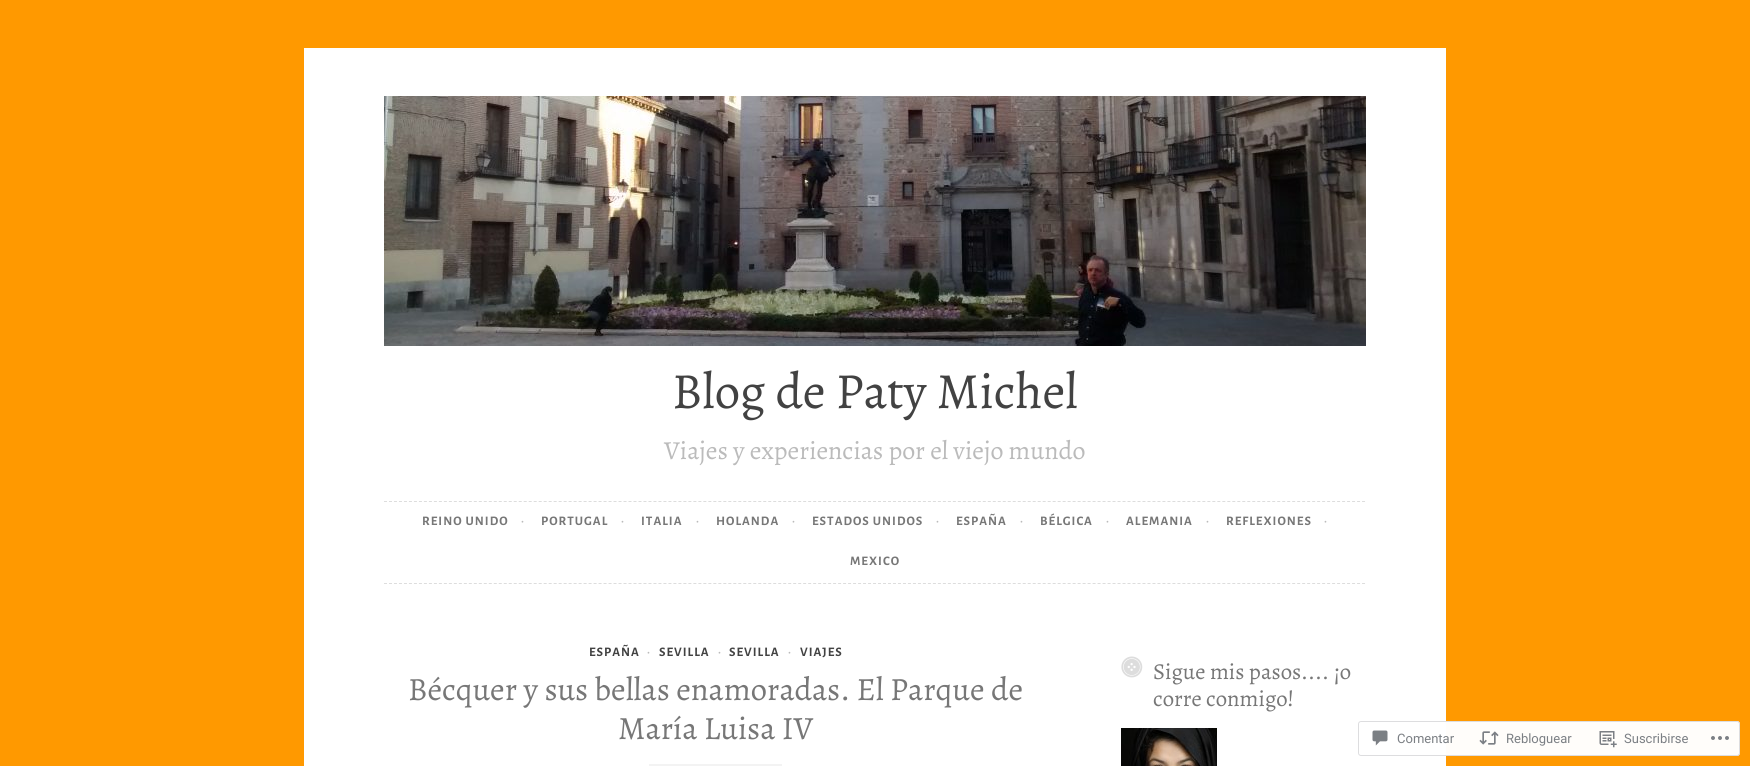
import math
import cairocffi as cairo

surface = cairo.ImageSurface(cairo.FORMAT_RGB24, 1750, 766)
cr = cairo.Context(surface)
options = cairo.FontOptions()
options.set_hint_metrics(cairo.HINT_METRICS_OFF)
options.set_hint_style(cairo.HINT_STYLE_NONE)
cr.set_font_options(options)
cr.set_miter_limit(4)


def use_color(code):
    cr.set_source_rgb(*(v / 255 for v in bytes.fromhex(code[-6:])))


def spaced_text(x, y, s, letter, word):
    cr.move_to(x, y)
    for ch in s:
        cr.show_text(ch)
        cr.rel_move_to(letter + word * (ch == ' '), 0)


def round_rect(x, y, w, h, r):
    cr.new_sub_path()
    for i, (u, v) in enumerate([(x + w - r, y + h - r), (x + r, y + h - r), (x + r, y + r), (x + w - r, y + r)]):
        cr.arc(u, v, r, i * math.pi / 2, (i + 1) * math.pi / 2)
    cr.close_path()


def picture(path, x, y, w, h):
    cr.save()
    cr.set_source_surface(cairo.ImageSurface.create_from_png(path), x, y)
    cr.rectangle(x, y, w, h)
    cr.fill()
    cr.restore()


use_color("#ff9900")
cr.paint()
use_color("#ffffff")
cr.rectangle(304, 48, 1142, 718)
cr.fill()
picture("img1.png", 384, 96, 982, 250)
cr.select_font_face("Alegreya")
cr.set_font_size(50.75)
use_color("#424242")
cr.move_to(672, 408)
cr.show_text("Blog de Paty Michel")
cr.set_font_size(26)
use_color("#bbbbbb")
cr.move_to(664, 459)
cr.show_text("Viajes y experiencias por el viejo mundo")
cr.new_path()
cr.move_to(384, 501.5)
cr.line_to(1366, 501.5)
use_color("#dddddd")
cr.set_line_width(1)
cr.set_dash([3, 1.99])
cr.stroke()
cr.new_path()
cr.move_to(384, 583.5)
cr.line_to(1366, 583.5)
cr.stroke()
cr.select_font_face("Alegreya Sans", cairo.FONT_SLANT_NORMAL, cairo.FONT_WEIGHT_BOLD)
cr.set_font_size(13)
use_color("#777777")
spaced_text(422, 525, "REINO UNIDO", 1, 0)
use_color("#bbbbbb")
spaced_text(521, 525, "·", 1, 0)
use_color("#777777")
spaced_text(541, 525, "PORTUGAL", 1, 0)
use_color("#bbbbbb")
spaced_text(621, 525, "·", 1, 0)
use_color("#777777")
spaced_text(641, 525, "ITALIA", 1, 0)
use_color("#bbbbbb")
spaced_text(696, 525, "·", 1, 0)
use_color("#777777")
spaced_text(716, 525, "HOLANDA", 1, 0)
use_color("#bbbbbb")
spaced_text(792, 525, "·", 1, 0)
use_color("#777777")
spaced_text(812, 525, "ESTADOS UNIDOS", 1, 0)
use_color("#bbbbbb")
spaced_text(936, 525, "·", 1, 0)
use_color("#777777")
spaced_text(956, 525, "ESPAÑA", 1, 0)
use_color("#bbbbbb")
spaced_text(1020, 525, "·", 1, 0)
use_color("#777777")
spaced_text(1040, 525, "BÉLGICA", 1, 0)
use_color("#bbbbbb")
spaced_text(1106, 525, "·", 1, 0)
use_color("#777777")
spaced_text(1126, 525, "ALEMANIA", 1, 0)
use_color("#bbbbbb")
spaced_text(1206, 525, "·", 1, 0)
use_color("#777777")
spaced_text(1226, 525, "REFLEXIONES", 1, 0)
use_color("#bbbbbb")
spaced_text(1324, 525, "·", 1, 0)
use_color("#777777")
spaced_text(850, 565, "MEXICO", 1, 0)
use_color("#424242")
spaced_text(589, 656, "ESPAÑA", 1, 0)
use_color("#bbbbbb")
spaced_text(647, 656, "·", 1, 0)
use_color("#424242")
spaced_text(659, 656, "SEVILLA", 1, 0)
use_color("#bbbbbb")
spaced_text(718, 656, "·", 1, 0)
use_color("#424242")
spaced_text(729, 656, "SEVILLA", 1, 0)
use_color("#bbbbbb")
spaced_text(788, 656, "·", 1, 0)
use_color("#424242")
spaced_text(800, 656, "VIAJES", 1, 0)
cr.select_font_face("Alegreya")
cr.set_font_size(32.5)
use_color("#777777")
cr.move_to(408, 700)
cr.show_text("Bécquer y sus bellas enamoradas. El Parque de")
cr.move_to(618, 739)
cr.show_text("María Luisa IV")
use_color("#f3f3f3")
cr.rectangle(649, 764, 133, 2)
cr.fill()
picture("img2.png", 1121, 656, 22, 22)
cr.set_font_size(22.75)
use_color("#777777")
cr.move_to(1153, 679)
cr.show_text("Sigue mis pasos.... ¡o")
cr.move_to(1153, 706)
cr.show_text("corre conmigo!")
picture("img3.png", 1121, 728, 96, 38)
cr.set_source_rgba(1, 1, 1, 0.98)
round_rect(1358, 721, 382, 35, 3)
cr.fill()
round_rect(1358.5, 721.5, 381, 34, 2.5)
cr.set_source_rgba(0.863, 0.863, 0.871, 0.98)
cr.set_dash([])
cr.stroke()
picture("img4.png", 1372, 730, 16, 16)
cr.select_font_face("Roboto")
cr.set_font_size(13)
use_color("#7b7f84")
cr.move_to(1397, 743)
cr.show_text("Comentar")
picture("img5.png", 1479, 731, 20, 14)
cr.move_to(1506, 743)
cr.show_text("Rebloguear")
picture("img6.png", 1599, 731, 18, 17)
cr.move_to(1624, 743)
cr.show_text("Suscribirse")
picture("img7.png", 1711, 736, 18, 4)
surface.write_to_png("result.png")
